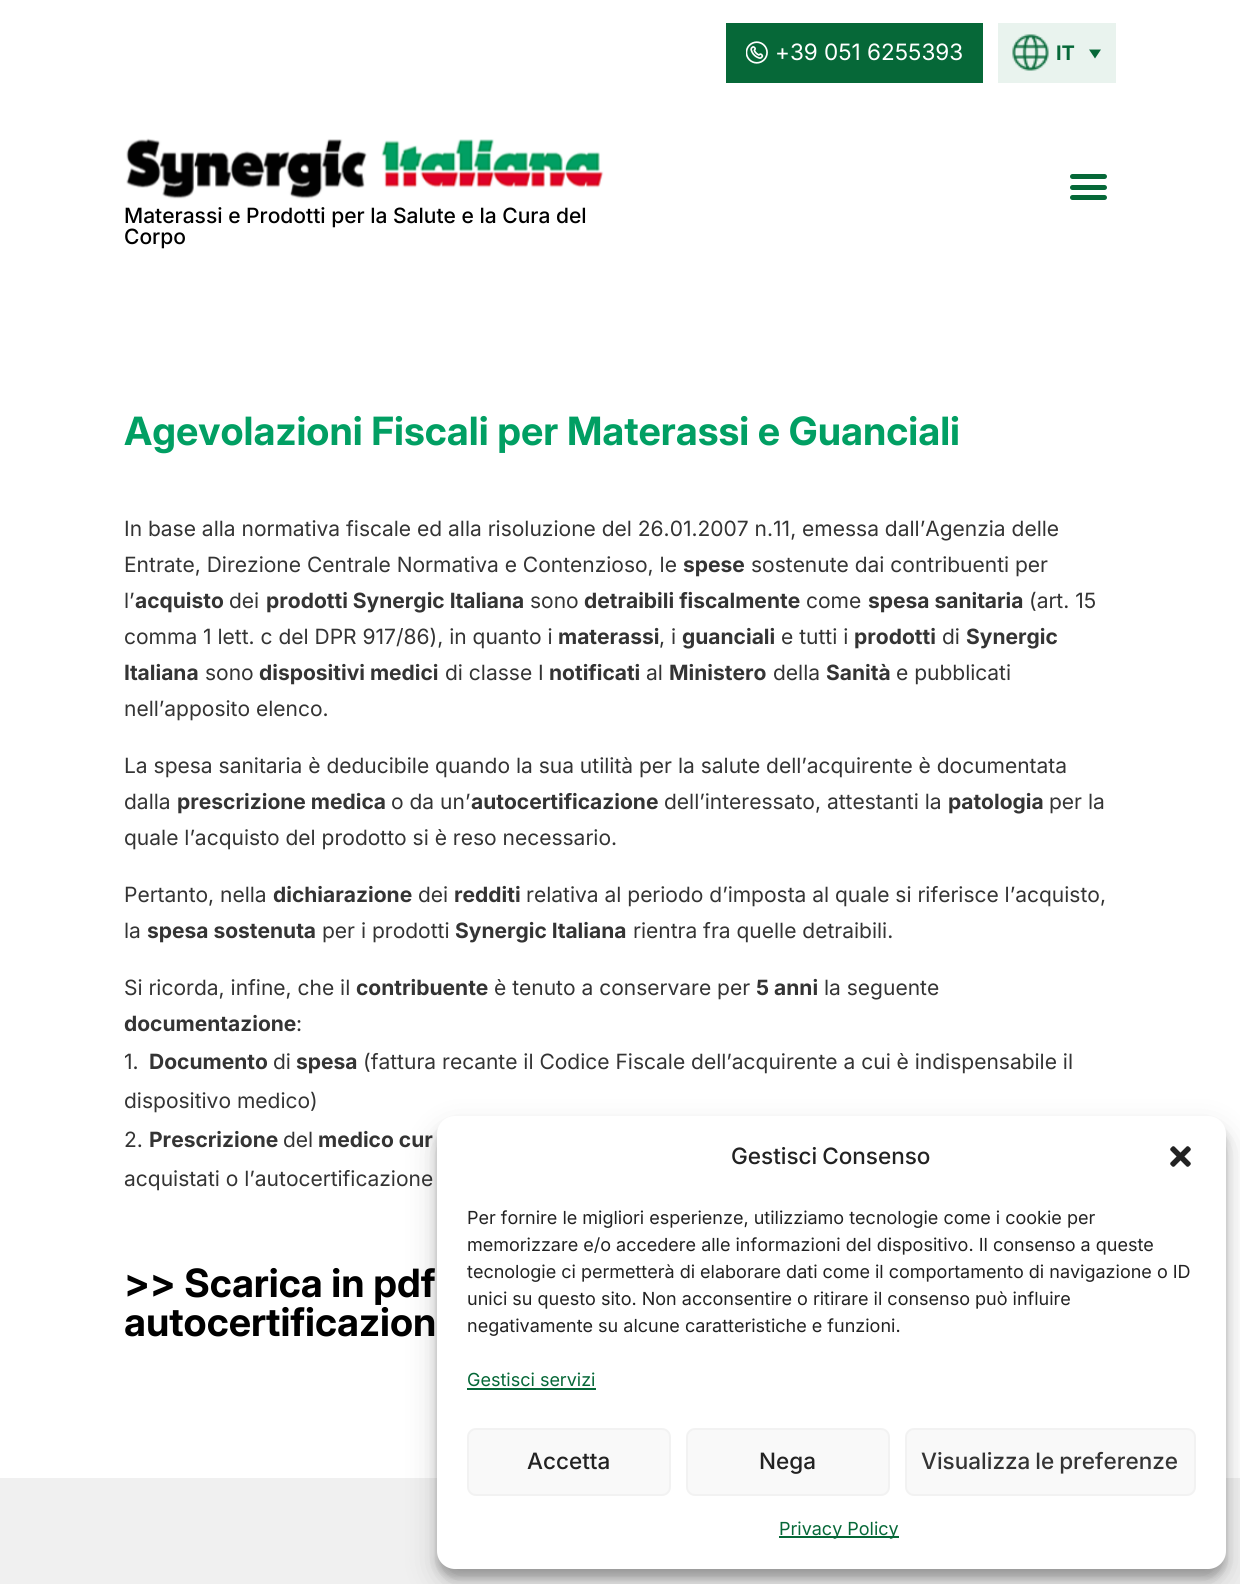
import math
import cairocffi as cairo

surface = cairo.ImageSurface(cairo.FORMAT_RGB24, 1240, 1584)
cr = cairo.Context(surface)
options = cairo.FontOptions()
options.set_hint_metrics(cairo.HINT_METRICS_OFF)
options.set_hint_style(cairo.HINT_STYLE_NONE)
cr.set_font_options(options)
cr.set_miter_limit(4)


def use_color(code):
    cr.set_source_rgb(*(v / 255 for v in bytes.fromhex(code[-6:])))


def spaced_text(x, y, s, letter, word):
    cr.move_to(x, y)
    for ch in s:
        cr.show_text(ch)
        cr.rel_move_to(letter + word * (ch == ' '), 0)


def round_rect(x, y, w, h, r):
    cr.new_sub_path()
    for i, (u, v) in enumerate([(x + w - r, y + h - r), (x + r, y + h - r), (x + r, y + r), (x + w - r, y + r)]):
        cr.arc(u, v, r, i * math.pi / 2, (i + 1) * math.pi / 2)
    cr.close_path()


def shadow(x, y, w, h, r, blur, alpha):
    cr.push_group_with_content(cairo.CONTENT_ALPHA)
    cr.set_operator(cairo.OPERATOR_SOURCE)
    for i in range(15, -16, -2):
        e = blur * i / 6
        if min(w, h) + 2 * e > 0:
            cr.set_source_rgba(0, 0, 0, alpha * math.erfc((i - 1) / 8.5) / 2)
            round_rect(x - e, y - e, w + 2 * e, h + 2 * e, max(0, min(r + e + blur * .6, min(w, h) / 2 + e)))
            cr.fill()
    cr.mask(cr.pop_group())


def picture(path, x, y, w, h):
    cr.save()
    cr.set_source_surface(cairo.ImageSurface.create_from_png(path), x, y)
    cr.rectangle(x, y, w, h)
    cr.fill()
    cr.restore()


use_color("#ffffff")
cr.paint()
use_color("#066838")
cr.rectangle(726, 23, 257, 60)
cr.fill()
picture("img1.png", 746, 41, 22, 23)
cr.select_font_face("Inter")
cr.set_font_size(22.5)
use_color("#ffffff")
cr.move_to(775, 60)
cr.show_text("+39 051 6255393")
use_color("#e9f3ee")
cr.rectangle(998, 23, 118, 60)
cr.fill()
picture("img2.png", 1012, 34, 37, 37)
cr.select_font_face("Inter", cairo.FONT_SLANT_NORMAL, cairo.FONT_WEIGHT_BOLD)
cr.set_font_size(20)
use_color("#066838")
cr.move_to(1056, 60)
cr.show_text("IT")
cr.new_path()
cr.move_to(1089, 49.5)
cr.line_to(1101, 49.5)
cr.line_to(1095, 58.5)
cr.close_path()
cr.fill()
round_rect(1070, 174, 37, 5, 2.5)
cr.fill()
round_rect(1070, 185, 37, 5, 2.5)
cr.fill()
round_rect(1070, 195, 37, 5, 2.5)
cr.fill()
picture("img3.png", 126, 138, 478, 61)
cr.select_font_face("Inter Medium")
cr.set_font_size(21)
use_color("#000000")
cr.move_to(124, 223)
cr.show_text("Materassi e Prodotti per la Salute e la Cura del")
cr.move_to(124, 244)
cr.show_text("Corpo")
cr.select_font_face("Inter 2", cairo.FONT_SLANT_NORMAL, cairo.FONT_WEIGHT_BOLD)
cr.set_font_size(39)
use_color("#019f63")
cr.move_to(124, 445)
cr.show_text("Agevolazioni Fiscali per Materassi e Guanciali")
cr.select_font_face("Inter")
cr.set_font_size(21)
use_color("#343434")
cr.move_to(124, 536)
cr.show_text("In base alla normativa fiscale ed alla risoluzione del 26.01.2007 n.11, emessa dall’Agenzia delle")
cr.move_to(124, 572)
cr.show_text("Entrate, Direzione Centrale Normativa e Contenzioso, le")
cr.select_font_face("Inter", cairo.FONT_SLANT_NORMAL, cairo.FONT_WEIGHT_BOLD)
cr.move_to(683, 572)
cr.show_text("spese")
cr.select_font_face("Inter")
cr.move_to(751, 572)
cr.show_text("sostenute dai contribuenti per")
cr.move_to(124, 608)
cr.show_text("l’")
cr.select_font_face("Inter", cairo.FONT_SLANT_NORMAL, cairo.FONT_WEIGHT_BOLD)
cr.move_to(135, 608)
cr.show_text("acquisto")
cr.select_font_face("Inter")
cr.move_to(229, 608)
cr.show_text("dei")
cr.select_font_face("Inter", cairo.FONT_SLANT_NORMAL, cairo.FONT_WEIGHT_BOLD)
cr.move_to(266, 608)
cr.show_text("prodotti Synergic Italiana")
cr.select_font_face("Inter")
cr.move_to(530, 608)
cr.show_text("sono")
cr.select_font_face("Inter", cairo.FONT_SLANT_NORMAL, cairo.FONT_WEIGHT_BOLD)
cr.move_to(584, 608)
cr.show_text("detraibili fiscalmente")
cr.select_font_face("Inter")
cr.move_to(806, 608)
cr.show_text("come")
cr.select_font_face("Inter", cairo.FONT_SLANT_NORMAL, cairo.FONT_WEIGHT_BOLD)
cr.move_to(868, 608)
cr.show_text("spesa sanitaria")
cr.select_font_face("Inter")
cr.move_to(1029, 608)
cr.show_text("(art. 15")
cr.move_to(124, 644)
cr.show_text("comma 1 lett. c del DPR 917/86), in quanto i")
cr.select_font_face("Inter", cairo.FONT_SLANT_NORMAL, cairo.FONT_WEIGHT_BOLD)
cr.move_to(558, 644)
cr.show_text("materassi")
cr.select_font_face("Inter")
cr.move_to(659, 644)
cr.show_text(", i")
cr.select_font_face("Inter", cairo.FONT_SLANT_NORMAL, cairo.FONT_WEIGHT_BOLD)
cr.move_to(682, 644)
cr.show_text("guanciali")
cr.select_font_face("Inter")
cr.move_to(781, 644)
cr.show_text("e tutti i")
cr.select_font_face("Inter", cairo.FONT_SLANT_NORMAL, cairo.FONT_WEIGHT_BOLD)
cr.move_to(854, 644)
cr.show_text("prodotti")
cr.select_font_face("Inter")
cr.move_to(942, 644)
cr.show_text("di")
cr.select_font_face("Inter", cairo.FONT_SLANT_NORMAL, cairo.FONT_WEIGHT_BOLD)
cr.move_to(966, 644)
cr.show_text("Synergic")
cr.move_to(124, 680)
cr.show_text("Italiana")
cr.select_font_face("Inter")
cr.move_to(205, 680)
cr.show_text("sono")
cr.select_font_face("Inter", cairo.FONT_SLANT_NORMAL, cairo.FONT_WEIGHT_BOLD)
cr.move_to(259, 680)
cr.show_text("dispositivi medici")
cr.select_font_face("Inter")
cr.move_to(445, 680)
cr.show_text("di classe I")
cr.select_font_face("Inter", cairo.FONT_SLANT_NORMAL, cairo.FONT_WEIGHT_BOLD)
cr.move_to(549, 680)
cr.show_text("notificati")
cr.select_font_face("Inter")
cr.move_to(646, 680)
cr.show_text("al")
cr.select_font_face("Inter", cairo.FONT_SLANT_NORMAL, cairo.FONT_WEIGHT_BOLD)
cr.move_to(669, 680)
cr.show_text("Ministero")
cr.select_font_face("Inter")
cr.move_to(773, 680)
cr.show_text("della")
cr.select_font_face("Inter", cairo.FONT_SLANT_NORMAL, cairo.FONT_WEIGHT_BOLD)
cr.move_to(826, 680)
cr.show_text("Sanità")
cr.select_font_face("Inter")
cr.move_to(896, 680)
cr.show_text("e pubblicati")
cr.move_to(124, 716)
cr.show_text("nell’apposito elenco.")
cr.move_to(124, 773)
cr.show_text("La spesa sanitaria è deducibile quando la sua utilità per la salute dell’acquirente è documentata")
cr.move_to(124, 809)
cr.show_text("dalla")
cr.select_font_face("Inter", cairo.FONT_SLANT_NORMAL, cairo.FONT_WEIGHT_BOLD)
cr.move_to(177, 809)
cr.show_text("prescrizione medica")
cr.select_font_face("Inter")
cr.move_to(391, 809)
cr.show_text("o da un’")
cr.select_font_face("Inter", cairo.FONT_SLANT_NORMAL, cairo.FONT_WEIGHT_BOLD)
cr.move_to(471, 809)
cr.show_text("autocertificazione")
cr.select_font_face("Inter")
cr.move_to(664, 809)
cr.show_text("dell’interessato, attestanti la")
cr.select_font_face("Inter", cairo.FONT_SLANT_NORMAL, cairo.FONT_WEIGHT_BOLD)
cr.move_to(948, 809)
cr.show_text("patologia")
cr.select_font_face("Inter")
cr.move_to(1049, 809)
cr.show_text("per la")
cr.move_to(124, 845)
cr.show_text("quale l’acquisto del prodotto si è reso necessario.")
cr.move_to(124, 902)
cr.show_text("Pertanto, nella")
cr.select_font_face("Inter", cairo.FONT_SLANT_NORMAL, cairo.FONT_WEIGHT_BOLD)
cr.move_to(273, 902)
cr.show_text("dichiarazione")
cr.select_font_face("Inter")
cr.move_to(418, 902)
cr.show_text("dei")
cr.select_font_face("Inter", cairo.FONT_SLANT_NORMAL, cairo.FONT_WEIGHT_BOLD)
cr.move_to(454, 902)
cr.show_text("redditi")
cr.select_font_face("Inter")
cr.move_to(526, 902)
cr.show_text("relativa al periodo d’imposta al quale si riferisce l’acquisto,")
cr.move_to(124, 938)
cr.show_text("la")
cr.select_font_face("Inter", cairo.FONT_SLANT_NORMAL, cairo.FONT_WEIGHT_BOLD)
cr.move_to(147, 938)
cr.show_text("spesa sostenuta")
cr.select_font_face("Inter")
cr.move_to(322, 938)
cr.show_text("per i prodotti")
cr.select_font_face("Inter", cairo.FONT_SLANT_NORMAL, cairo.FONT_WEIGHT_BOLD)
cr.move_to(455, 938)
cr.show_text("Synergic Italiana")
cr.select_font_face("Inter")
cr.move_to(633, 938)
cr.show_text("rientra fra quelle detraibili.")
cr.move_to(124, 995)
cr.show_text("Si ricorda, infine, che il")
cr.select_font_face("Inter", cairo.FONT_SLANT_NORMAL, cairo.FONT_WEIGHT_BOLD)
cr.move_to(356, 995)
cr.show_text("contribuente")
cr.select_font_face("Inter")
cr.move_to(494, 995)
cr.show_text("è tenuto a conservare per")
cr.select_font_face("Inter", cairo.FONT_SLANT_NORMAL, cairo.FONT_WEIGHT_BOLD)
cr.move_to(756, 995)
cr.show_text("5 anni")
cr.select_font_face("Inter")
cr.move_to(824, 995)
cr.show_text("la seguente")
cr.select_font_face("Inter", cairo.FONT_SLANT_NORMAL, cairo.FONT_WEIGHT_BOLD)
cr.move_to(124, 1031)
cr.show_text("documentazione")
cr.select_font_face("Inter")
cr.move_to(296, 1031)
cr.show_text(":")
cr.move_to(124, 1069)
cr.show_text("1.")
cr.select_font_face("Inter", cairo.FONT_SLANT_NORMAL, cairo.FONT_WEIGHT_BOLD)
cr.move_to(149, 1069)
cr.show_text("Documento")
cr.select_font_face("Inter")
cr.move_to(273, 1069)
cr.show_text("di")
cr.select_font_face("Inter", cairo.FONT_SLANT_NORMAL, cairo.FONT_WEIGHT_BOLD)
cr.move_to(296, 1069)
cr.show_text("spesa")
cr.select_font_face("Inter")
cr.move_to(363, 1069)
cr.show_text("(fattura recante il Codice Fiscale dell’acquirente a cui è indispensabile il")
cr.move_to(124, 1108)
cr.show_text("dispositivo medico)")
cr.move_to(124, 1147)
cr.show_text("2.")
cr.select_font_face("Inter", cairo.FONT_SLANT_NORMAL, cairo.FONT_WEIGHT_BOLD)
cr.move_to(149, 1147)
cr.show_text("Prescrizione")
cr.select_font_face("Inter")
cr.move_to(283, 1147)
cr.show_text("del")
cr.select_font_face("Inter", cairo.FONT_SLANT_NORMAL, cairo.FONT_WEIGHT_BOLD)
cr.move_to(318, 1147)
cr.show_text("medico cur")
cr.select_font_face("Inter")
cr.move_to(124, 1186)
cr.show_text("acquistati o l’autocertificazione")
cr.select_font_face("Inter 2", cairo.FONT_SLANT_NORMAL, cairo.FONT_WEIGHT_BOLD)
cr.set_font_size(39)
use_color("#000000")
cr.move_to(124, 1297)
cr.show_text(">> Scarica in pdf")
cr.move_to(124, 1336)
cr.show_text("autocertificazion")
use_color("#f0f0f0")
cr.rectangle(0, 1478, 1240, 106)
cr.fill()
use_color("#000000")
shadow(437, 1125, 789, 453, 18, 4.5, 0.23)
shadow(437, 1131, 789, 453, 18, 15, 0.19)
use_color("#ffffff")
round_rect(437, 1116, 789, 453, 18)
cr.fill()
cr.select_font_face("Inter Medium")
cr.set_font_size(22.5)
use_color("#222222")
spaced_text(731, 1164, "Gestisci Consenso", 0, -1)
picture("img4.png", 1170, 1146, 21, 21)
cr.select_font_face("Inter")
cr.set_font_size(18)
cr.move_to(467, 1224)
cr.show_text("Per fornire le migliori esperienze, utilizziamo tecnologie come i cookie per")
cr.move_to(467, 1251)
cr.show_text("memorizzare e/o accedere alle informazioni del dispositivo. Il consenso a queste")
cr.move_to(467, 1278)
cr.show_text("tecnologie ci permetterà di elaborare dati come il comportamento di navigazione o ID")
cr.move_to(467, 1305)
cr.show_text("unici su questo sito. Non acconsentire o ritirare il consenso può influire")
cr.move_to(467, 1332)
cr.show_text("negativamente su alcune caratteristiche e funzioni.")
use_color("#066838")
cr.move_to(467, 1386)
cr.show_text("Gestisci servizi")
cr.rectangle(467, 1388, 129, 2)
cr.fill()
use_color("#f9f9f9")
round_rect(468, 1429, 202, 66, 8)
cr.fill_preserve()
use_color("#f2f2f2")
cr.stroke()
cr.select_font_face("Inter Medium")
cr.set_font_size(22.5)
use_color("#222222")
cr.move_to(527, 1469)
cr.show_text("Accetta")
use_color("#f9f9f9")
round_rect(687, 1429, 202, 66, 8)
cr.fill_preserve()
use_color("#f2f2f2")
cr.stroke()
use_color("#222222")
cr.move_to(759, 1469)
cr.show_text("Nega")
use_color("#f9f9f9")
round_rect(906, 1429, 289, 66, 8)
cr.fill_preserve()
use_color("#f2f2f2")
cr.stroke()
use_color("#343434")
spaced_text(921, 1469, "Visualizza le preferenze", 0, -1)
use_color("#066838")
cr.rectangle(779, 1536, 120, 2)
cr.fill()
cr.select_font_face("Inter")
cr.set_font_size(18)
cr.move_to(779, 1535)
cr.show_text("Privacy Policy")
surface.write_to_png("result.png")
